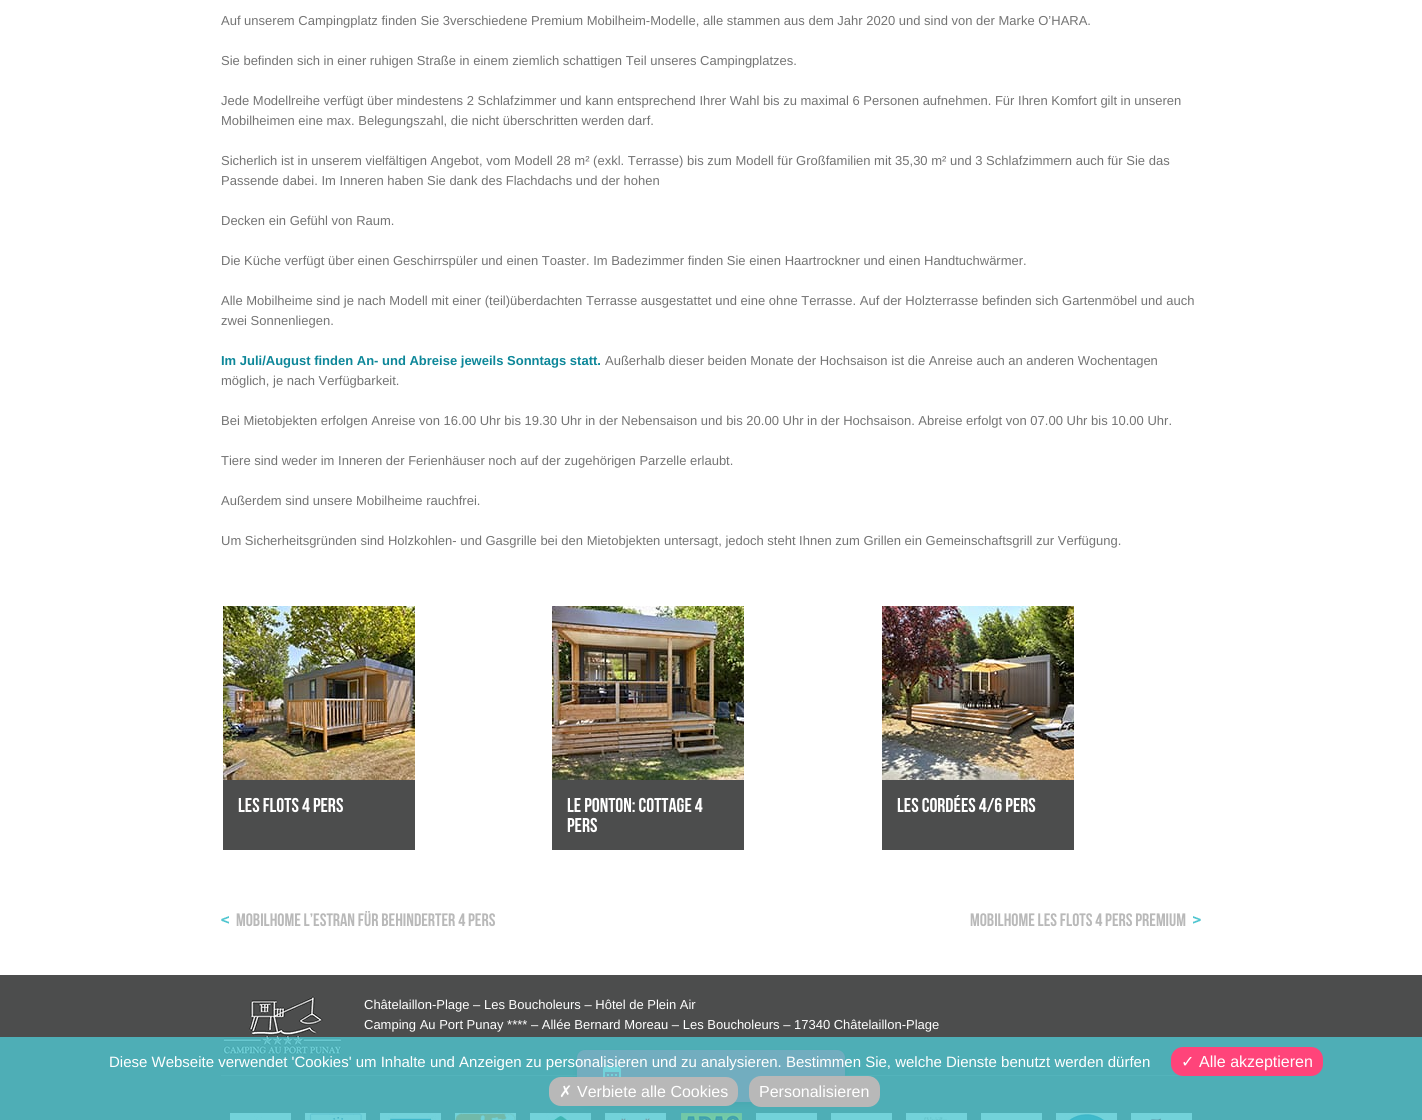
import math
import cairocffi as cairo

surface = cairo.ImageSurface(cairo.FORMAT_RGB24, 1422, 1120)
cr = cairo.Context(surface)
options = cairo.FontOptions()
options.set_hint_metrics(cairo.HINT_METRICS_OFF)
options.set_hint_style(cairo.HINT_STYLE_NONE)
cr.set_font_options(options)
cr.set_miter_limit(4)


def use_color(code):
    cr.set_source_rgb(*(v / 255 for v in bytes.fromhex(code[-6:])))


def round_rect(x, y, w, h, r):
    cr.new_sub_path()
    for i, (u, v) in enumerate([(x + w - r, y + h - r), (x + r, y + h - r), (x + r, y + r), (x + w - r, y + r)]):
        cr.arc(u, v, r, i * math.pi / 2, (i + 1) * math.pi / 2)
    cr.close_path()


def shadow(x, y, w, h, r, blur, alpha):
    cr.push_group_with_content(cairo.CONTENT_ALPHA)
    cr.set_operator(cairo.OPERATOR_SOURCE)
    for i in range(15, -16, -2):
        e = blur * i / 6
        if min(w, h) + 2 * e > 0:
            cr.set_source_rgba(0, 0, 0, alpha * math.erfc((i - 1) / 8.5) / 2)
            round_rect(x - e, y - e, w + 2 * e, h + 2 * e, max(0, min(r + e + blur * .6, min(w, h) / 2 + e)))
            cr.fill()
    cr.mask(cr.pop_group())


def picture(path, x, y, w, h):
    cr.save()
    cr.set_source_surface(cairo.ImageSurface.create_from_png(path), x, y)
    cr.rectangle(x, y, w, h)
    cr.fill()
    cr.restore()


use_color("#ffffff")
cr.paint()
cr.select_font_face("Liberation Sans")
cr.set_font_size(13)
use_color("#747474")
cr.move_to(221, 25)
cr.show_text("Auf unserem Campingplatz finden Sie 3verschiedene Premium Mobilheim-Modelle, alle stammen aus dem Jahr 2020 und sind von der Marke O’HARA.")
cr.move_to(221, 65)
cr.show_text("Sie befinden sich in einer ruhigen Straße in einem ziemlich schattigen Teil unseres Campingplatzes.")
cr.move_to(221, 105)
cr.show_text("Jede Modellreihe verfügt über mindestens 2 Schlafzimmer und kann entsprechend Ihrer Wahl bis zu maximal 6 Personen aufnehmen. Für Ihren Komfort gilt in unseren")
cr.move_to(221, 125)
cr.show_text("Mobilheimen eine max. Belegungszahl, die nicht überschritten werden darf.")
cr.move_to(221, 165)
cr.show_text("Sicherlich ist in unserem vielfältigen Angebot, vom Modell 28 m² (exkl. Terrasse) bis zum Modell für Großfamilien mit 35,30 m² und 3 Schlafzimmern auch für Sie das")
cr.move_to(221, 185)
cr.show_text("Passende dabei. Im Inneren haben Sie dank des Flachdachs und der hohen")
cr.move_to(221, 225)
cr.show_text("Decken ein Gefühl von Raum.")
cr.move_to(221, 265)
cr.show_text("Die Küche verfügt über einen Geschirrspüler und einen Toaster. Im Badezimmer finden Sie einen Haartrockner und einen Handtuchwärmer.")
cr.move_to(221, 305)
cr.show_text("Alle Mobilheime sind je nach Modell mit einer (teil)überdachten Terrasse ausgestattet und eine ohne Terrasse. Auf der Holzterrasse befinden sich Gartenmöbel und auch")
cr.move_to(221, 325)
cr.show_text("zwei Sonnenliegen.")
cr.select_font_face("Liberation Sans", cairo.FONT_SLANT_NORMAL, cairo.FONT_WEIGHT_BOLD)
use_color("#0d8799")
cr.move_to(221, 365)
cr.show_text("Im Juli/August finden An- und Abreise jeweils Sonntags statt.")
cr.select_font_face("Liberation Sans")
use_color("#747474")
cr.move_to(605, 365)
cr.show_text("Außerhalb dieser beiden Monate der Hochsaison ist die Anreise auch an anderen Wochentagen")
cr.move_to(221, 385)
cr.show_text("möglich, je nach Verfügbarkeit.")
cr.move_to(221, 425)
cr.show_text("Bei Mietobjekten erfolgen Anreise von 16.00 Uhr bis 19.30 Uhr in der Nebensaison und bis 20.00 Uhr in der Hochsaison. Abreise erfolgt von 07.00 Uhr bis 10.00 Uhr.")
cr.move_to(221, 465)
cr.show_text("Tiere sind weder im Inneren der Ferienhäuser noch auf der zugehörigen Parzelle erlaubt.")
cr.move_to(221, 505)
cr.show_text("Außerdem sind unsere Mobilheime rauchfrei.")
cr.move_to(221, 545)
cr.show_text("Um Sicherheitsgründen sind Holzkohlen- und Gasgrille bei den Mietobjekten untersagt, jedoch steht Ihnen zum Grillen ein Gemeinschaftsgrill zur Verfügung.")
picture("img1.png", 223, 606, 192, 174)
use_color("#4c4d4d")
cr.rectangle(223, 780, 192, 70)
cr.fill()
cr.select_font_face("Bebas Neue")
cr.set_font_size(20)
use_color("#ffffff")
cr.move_to(238, 812)
cr.show_text("LES FLOTS 4 PERS")
picture("img2.png", 552, 606, 192, 174)
use_color("#4c4d4d")
cr.rectangle(552, 780, 192, 70)
cr.fill()
use_color("#ffffff")
cr.move_to(567, 812)
cr.show_text("LE PONTON: COTTAGE 4")
cr.move_to(567, 832)
cr.show_text("PERS")
picture("img3.png", 882, 606, 192, 174)
use_color("#4c4d4d")
cr.rectangle(882, 780, 192, 70)
cr.fill()
use_color("#ffffff")
cr.move_to(897, 812)
cr.show_text("LES CORDÉES 4/6 PERS")
picture("img4.png", 221, 916, 8, 8)
cr.set_font_size(18)
use_color("#b9b9b9")
cr.move_to(236, 926)
cr.show_text("Mobilhome L’Estran für Behinderter 4 Pers")
picture("img5.png", 1193, 916, 8, 8)
cr.move_to(970, 926)
cr.show_text("Mobilhome Les Flots 4 Pers Premium")
use_color("#4c4d4d")
cr.rectangle(0, 975, 1422, 145)
cr.fill()
picture("img6.png", 222, 996, 121, 59)
cr.select_font_face("Liberation Sans")
cr.set_font_size(13)
use_color("#ffffff")
cr.move_to(364, 1009)
cr.show_text("Châtelaillon-Plage – Les Boucholeurs – Hôtel de Plein Air")
cr.move_to(364, 1029)
cr.show_text("Camping Au Port Punay **** – Allée Bernard Moreau – Les Boucholeurs – 17340 Châtelaillon-Plage")
use_color("#666666")
cr.rectangle(221, 1075, 962, 1)
cr.fill()
picture("img7.png", 230, 1113, 61, 7)
picture("img8.png", 305, 1113, 61, 7)
picture("img9.png", 380, 1113, 61, 7)
picture("img10.png", 455, 1113, 61, 7)
picture("img11.png", 530, 1113, 61, 7)
picture("img12.png", 605, 1113, 61, 7)
picture("img13.png", 681, 1113, 61, 7)
use_color("#ffffff")
cr.rectangle(756, 1113, 61, 7)
cr.fill()
cr.rectangle(831, 1113, 61, 7)
cr.fill()
picture("img14.png", 906, 1113, 61, 7)
cr.rectangle(981, 1113, 61, 7)
cr.fill()
picture("img15.png", 1056, 1113, 61, 7)
picture("img16.png", 1131, 1113, 61, 7)
use_color("#000000")
shadow(577, 1051, 268, 52, 8, 7, 0.12)
shadow(577, 1055, 268, 52, 8, 4, 0.14)
shadow(578, 1054, 266, 50, 7, 2.5, 0.2)
use_color("#ff447a")
round_rect(577, 1050, 268, 52, 8)
cr.fill()
picture("img17.png", 603, 1065, 18, 12)
cr.set_source_rgba(0.31, 0.78, 0.82, 0.8)
cr.rectangle(0, 1037, 1422, 83)
cr.fill()
cr.set_font_size(15)
use_color("#ffffff")
cr.move_to(109, 1067)
cr.show_text("Diese Webseite verwendet 'Cookies' um Inhalte und Anzeigen zu personalisieren und zu analysieren. Bestimmen Sie, welche Dienste benutzt werden dürfen")
use_color("#ff447a")
round_rect(1171, 1047, 152, 29, 12)
cr.fill()
cr.select_font_face("DejaVu Sans")
cr.set_font_size(16)
use_color("#ffffff")
cr.move_to(1181, 1067)
cr.show_text("✓")
cr.select_font_face("Liberation Sans")
cr.move_to(1199, 1067)
cr.show_text("Alle akzeptieren")
use_color("#b8b8b8")
round_rect(549, 1077, 189, 29, 12)
cr.fill()
cr.select_font_face("DejaVu Sans")
use_color("#ffffff")
cr.move_to(559, 1097)
cr.show_text("✗")
cr.select_font_face("Liberation Sans")
cr.move_to(577, 1097)
cr.show_text("Verbiete alle Cookies")
use_color("#b8b8b8")
round_rect(749, 1076, 131, 31, 12)
cr.fill()
use_color("#ffffff")
cr.move_to(759, 1097)
cr.show_text("Personalisieren")
surface.write_to_png("result.png")
